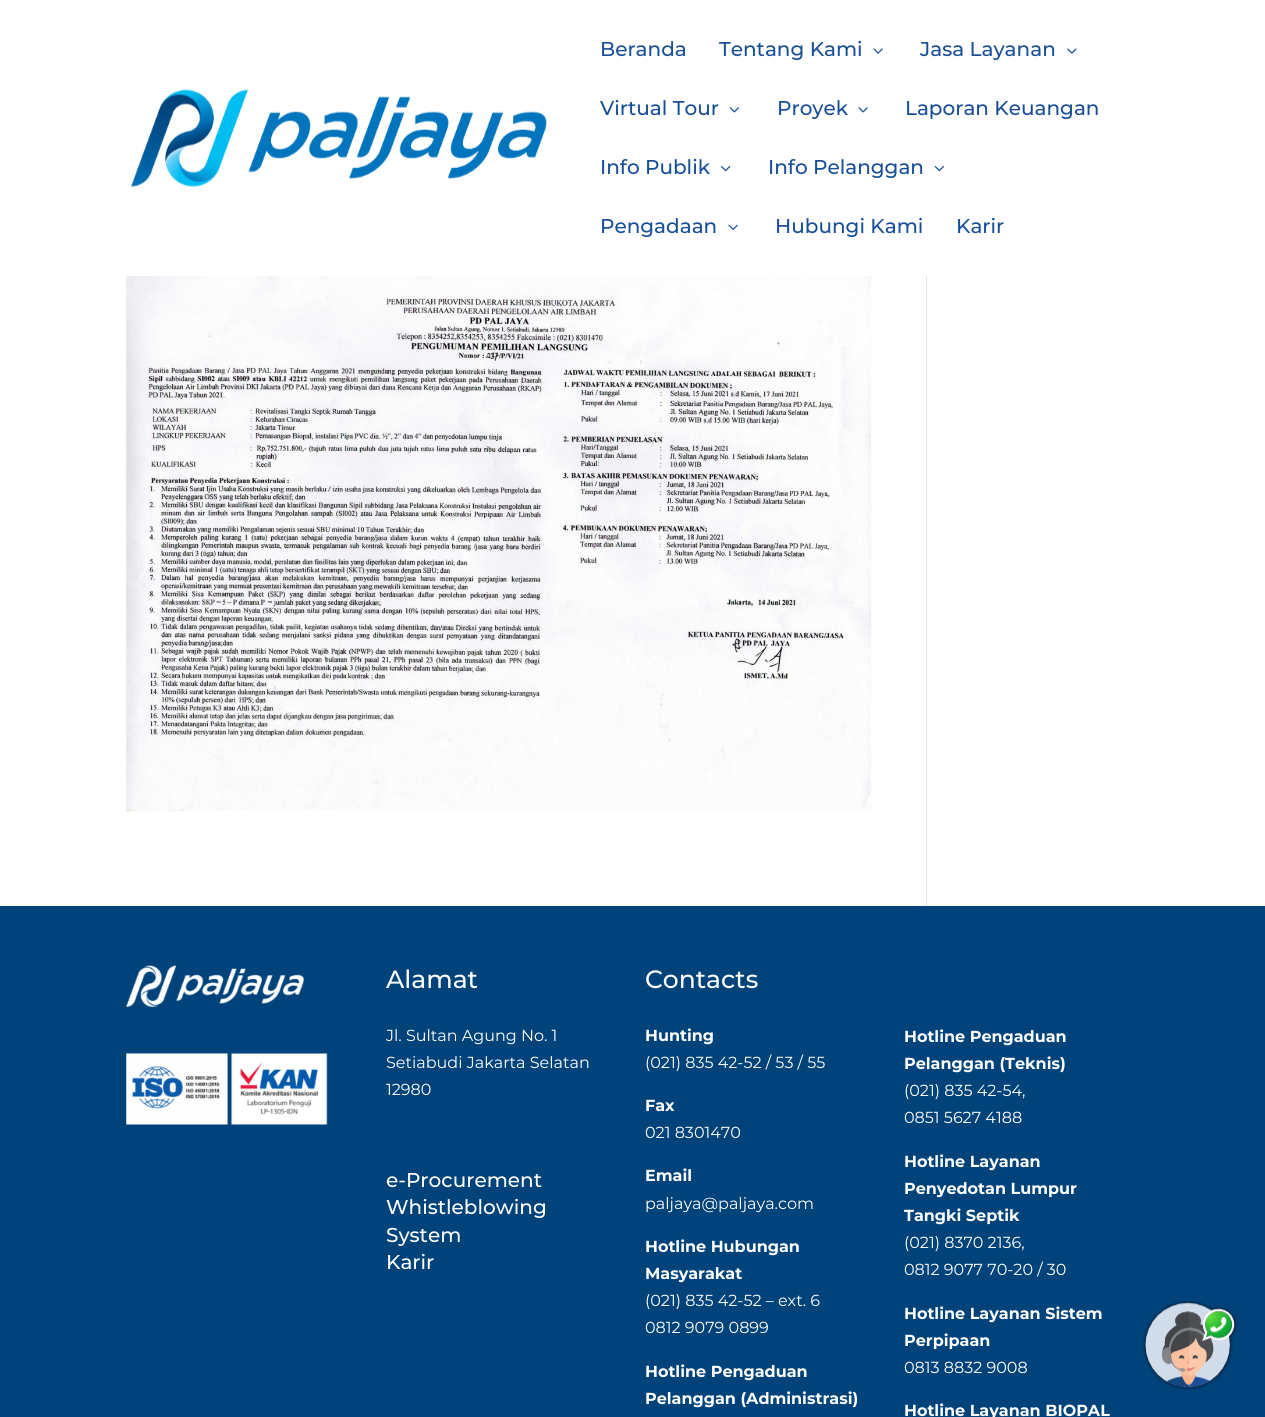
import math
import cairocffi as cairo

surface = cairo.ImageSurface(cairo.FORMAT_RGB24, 1265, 1417)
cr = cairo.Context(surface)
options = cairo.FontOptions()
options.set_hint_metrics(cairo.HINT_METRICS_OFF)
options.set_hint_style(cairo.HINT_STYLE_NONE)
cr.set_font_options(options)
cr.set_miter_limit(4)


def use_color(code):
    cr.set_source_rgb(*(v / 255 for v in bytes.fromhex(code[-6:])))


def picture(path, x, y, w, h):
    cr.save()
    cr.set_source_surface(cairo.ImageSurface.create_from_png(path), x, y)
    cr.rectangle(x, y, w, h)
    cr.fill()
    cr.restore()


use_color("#ffffff")
cr.paint()
picture("img1.png", 131, 89, 416, 98)
cr.select_font_face("Montserrat Medium")
cr.set_font_size(20)
use_color("#194f99")
cr.move_to(600, 56)
cr.show_text("Beranda")
cr.move_to(719, 56)
cr.show_text("Tentang Kami")
picture("img2.png", 873, 48, 10, 6)
cr.move_to(920, 56)
cr.show_text("Jasa Layanan")
picture("img3.png", 1067, 48, 10, 6)
cr.move_to(600, 115)
cr.show_text("Virtual Tour")
picture("img4.png", 729, 107, 10, 6)
cr.move_to(777, 115)
cr.show_text("Proyek")
picture("img5.png", 858, 107, 10, 6)
cr.move_to(905, 115)
cr.show_text("Laporan Keuangan")
cr.move_to(600, 174)
cr.show_text("Info Publik")
picture("img6.png", 721, 166, 10, 6)
cr.move_to(768, 174)
cr.show_text("Info Pelanggan")
picture("img7.png", 934, 166, 10, 6)
cr.move_to(600, 233)
cr.show_text("Pengadaan")
picture("img8.png", 728, 224, 10, 6)
cr.move_to(775, 233)
cr.show_text("Hubungi Kami")
cr.move_to(956, 233)
cr.show_text("Karir")
picture("img9.png", 126, 276, 746, 536)
use_color("#e2e2e2")
cr.rectangle(926, 276, 1, 630)
cr.fill()
use_color("#00427a")
cr.rectangle(0, 906, 1265, 511)
cr.fill()
picture("img10.png", 126, 965, 202, 160)
cr.set_font_size(25)
use_color("#ffffff")
cr.move_to(386, 988)
cr.show_text("Alamat")
cr.select_font_face("Montserrat")
cr.set_font_size(16)
cr.move_to(386, 1041)
cr.show_text("Jl. Sultan Agung No. 1")
cr.move_to(386, 1068)
cr.show_text("Setiabudi Jakarta Selatan")
cr.move_to(386, 1095)
cr.show_text("12980")
cr.select_font_face("Montserrat Medium")
cr.set_font_size(20)
cr.move_to(386, 1187)
cr.show_text("e-Procurement")
cr.move_to(386, 1214)
cr.show_text("Whistleblowing")
cr.move_to(386, 1242)
cr.show_text("System")
cr.move_to(386, 1269)
cr.show_text("Karir")
cr.set_font_size(25)
cr.move_to(645, 988)
cr.show_text("Contacts")
cr.select_font_face("Montserrat", cairo.FONT_SLANT_NORMAL, cairo.FONT_WEIGHT_BOLD)
cr.set_font_size(16)
cr.move_to(645, 1041)
cr.show_text("Hunting")
cr.select_font_face("Montserrat")
cr.move_to(645, 1068)
cr.show_text("(021) 835 42-52 / 53 / 55")
cr.select_font_face("Montserrat", cairo.FONT_SLANT_NORMAL, cairo.FONT_WEIGHT_BOLD)
cr.move_to(645, 1111)
cr.show_text("Fax")
cr.select_font_face("Montserrat")
cr.move_to(645, 1138)
cr.show_text("021 8301470")
cr.select_font_face("Montserrat", cairo.FONT_SLANT_NORMAL, cairo.FONT_WEIGHT_BOLD)
cr.move_to(645, 1181)
cr.show_text("Email")
cr.select_font_face("Montserrat")
cr.move_to(645, 1209)
cr.show_text("paljaya@paljaya.com")
cr.select_font_face("Montserrat", cairo.FONT_SLANT_NORMAL, cairo.FONT_WEIGHT_BOLD)
cr.move_to(645, 1252)
cr.show_text("Hotline Hubungan")
cr.move_to(645, 1279)
cr.show_text("Masyarakat")
cr.select_font_face("Montserrat")
cr.move_to(645, 1306)
cr.show_text("(021) 835 42-52 – ext. 6")
cr.move_to(645, 1333)
cr.show_text("0812 9079 0899")
cr.select_font_face("Montserrat", cairo.FONT_SLANT_NORMAL, cairo.FONT_WEIGHT_BOLD)
cr.move_to(645, 1377)
cr.show_text("Hotline Pengaduan")
cr.move_to(645, 1404)
cr.show_text("Pelanggan (Administrasi)")
cr.move_to(904, 1042)
cr.show_text("Hotline Pengaduan")
cr.move_to(904, 1069)
cr.show_text("Pelanggan (Teknis)")
cr.select_font_face("Montserrat")
cr.move_to(904, 1096)
cr.show_text("(021) 835 42-54,")
cr.move_to(904, 1123)
cr.show_text("0851 5627 4188")
cr.select_font_face("Montserrat", cairo.FONT_SLANT_NORMAL, cairo.FONT_WEIGHT_BOLD)
cr.move_to(904, 1167)
cr.show_text("Hotline Layanan")
cr.move_to(904, 1194)
cr.show_text("Penyedotan Lumpur")
cr.move_to(904, 1221)
cr.show_text("Tangki Septik")
cr.select_font_face("Montserrat")
cr.move_to(904, 1248)
cr.show_text("(021) 8370 2136,")
cr.move_to(904, 1275)
cr.show_text("0812 9077 70-20 / 30")
cr.select_font_face("Montserrat", cairo.FONT_SLANT_NORMAL, cairo.FONT_WEIGHT_BOLD)
cr.move_to(904, 1319)
cr.show_text("Hotline Layanan Sistem")
cr.move_to(904, 1346)
cr.show_text("Perpipaan")
cr.select_font_face("Montserrat")
cr.move_to(904, 1373)
cr.show_text("0813 8832 9008")
cr.select_font_face("Montserrat", cairo.FONT_SLANT_NORMAL, cairo.FONT_WEIGHT_BOLD)
cr.move_to(904, 1416)
cr.show_text("Hotline Layanan BIOPAL")
picture("img11.png", 1142, 1300, 96, 90)
surface.write_to_png("result.png")
